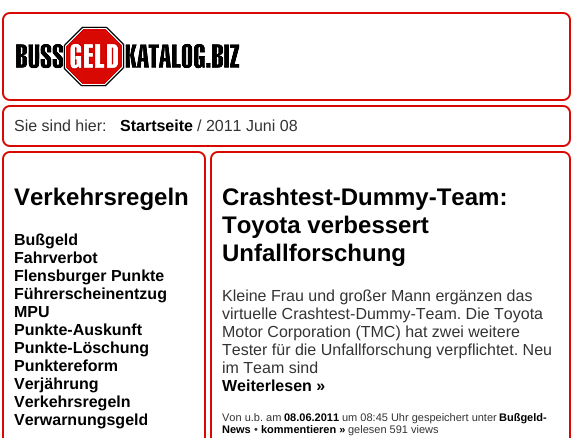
import math
import cairocffi as cairo

surface = cairo.ImageSurface(cairo.FORMAT_RGB24, 573, 438)
cr = cairo.Context(surface)
options = cairo.FontOptions()
options.set_hint_metrics(cairo.HINT_METRICS_OFF)
options.set_hint_style(cairo.HINT_STYLE_NONE)
cr.set_font_options(options)
cr.set_miter_limit(4)


def use_color(code):
    cr.set_source_rgb(*(v / 255 for v in bytes.fromhex(code[-6:])))


def round_rect(x, y, w, h, r):
    cr.new_sub_path()
    for i, (u, v) in enumerate([(x + w - r, y + h - r), (x + r, y + h - r), (x + r, y + r), (x + w - r, y + r)]):
        cr.arc(u, v, r, i * math.pi / 2, (i + 1) * math.pi / 2)
    cr.close_path()


def picture(path, x, y, w, h):
    cr.save()
    cr.set_source_surface(cairo.ImageSurface.create_from_png(path), x, y)
    cr.rectangle(x, y, w, h)
    cr.fill()
    cr.restore()


use_color("#ffffff")
cr.paint()
round_rect(3, 13, 567, 87, 7)
use_color("#d80903")
cr.stroke()
picture("img1.png", 16, 26, 224, 61)
round_rect(3, 106, 567, 40, 7)
cr.stroke()
cr.select_font_face("Liberation Sans")
cr.set_font_size(16)
use_color("#333333")
cr.move_to(14, 131)
cr.show_text("Sie sind hier:")
cr.select_font_face("Liberation Sans", cairo.FONT_SLANT_NORMAL, cairo.FONT_WEIGHT_BOLD)
use_color("#000000")
cr.move_to(120, 131)
cr.show_text("Startseite")
cr.select_font_face("Liberation Sans")
use_color("#333333")
cr.move_to(197, 131)
cr.show_text("/ 2011 Juni 08")
round_rect(3, 152, 202, 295, 7)
use_color("#d80903")
cr.stroke()
cr.select_font_face("Liberation Sans", cairo.FONT_SLANT_NORMAL, cairo.FONT_WEIGHT_BOLD)
cr.set_font_size(24)
use_color("#000000")
cr.move_to(14, 205)
cr.show_text("Verkehrsregeln")
cr.set_font_size(16)
cr.move_to(14, 245)
cr.show_text("Bußgeld")
cr.move_to(14, 263)
cr.show_text("Fahrverbot")
cr.move_to(14, 281)
cr.show_text("Flensburger Punkte")
cr.move_to(14, 299)
cr.show_text("Führerscheinentzug")
cr.move_to(14, 317)
cr.show_text("MPU")
cr.move_to(14, 335)
cr.show_text("Punkte-Auskunft")
cr.move_to(14, 353)
cr.show_text("Punkte-Löschung")
cr.move_to(14, 371)
cr.show_text("Punktereform")
cr.move_to(14, 389)
cr.show_text("Verjährung")
cr.move_to(14, 407)
cr.show_text("Verkehrsregeln")
cr.move_to(14, 425)
cr.show_text("Verwarnungsgeld")
round_rect(211, 152, 359, 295, 7)
use_color("#d80903")
cr.stroke()
cr.set_font_size(24)
use_color("#000000")
cr.move_to(222, 205)
cr.show_text("Crashtest-Dummy-Team:")
cr.move_to(222, 233)
cr.show_text("Toyota verbessert")
cr.move_to(222, 261)
cr.show_text("Unfallforschung")
cr.select_font_face("Liberation Sans")
cr.set_font_size(16)
use_color("#333333")
cr.move_to(222, 301)
cr.show_text("Kleine Frau und großer Mann ergänzen das")
cr.move_to(222, 319)
cr.show_text("virtuelle Crashtest-Dummy-Team. Die Toyota")
cr.move_to(222, 337)
cr.show_text("Motor Corporation (TMC) hat zwei weitere")
cr.move_to(222, 355)
cr.show_text("Tester für die Unfallforschung verpflichtet. Neu")
cr.move_to(222, 373)
cr.show_text("im Team sind")
cr.select_font_face("Liberation Sans", cairo.FONT_SLANT_NORMAL, cairo.FONT_WEIGHT_BOLD)
use_color("#000000")
cr.move_to(222, 391)
cr.show_text("Weiterlesen »")
cr.select_font_face("Liberation Sans")
cr.set_font_size(11)
use_color("#333333")
cr.move_to(222, 421)
cr.show_text("Von u.b. am")
cr.select_font_face("Liberation Sans", cairo.FONT_SLANT_NORMAL, cairo.FONT_WEIGHT_BOLD)
use_color("#000000")
cr.move_to(284, 421)
cr.show_text("08.06.2011")
cr.select_font_face("Liberation Sans")
use_color("#333333")
cr.move_to(342, 421)
cr.show_text("um 08:45 Uhr gespeichert unter")
cr.select_font_face("Liberation Sans", cairo.FONT_SLANT_NORMAL, cairo.FONT_WEIGHT_BOLD)
use_color("#000000")
cr.move_to(499, 421)
cr.show_text("Bußgeld-")
cr.move_to(222, 433)
cr.show_text("News")
cr.select_font_face("Liberation Sans")
use_color("#333333")
cr.move_to(254, 433)
cr.show_text("•")
cr.select_font_face("Liberation Sans", cairo.FONT_SLANT_NORMAL, cairo.FONT_WEIGHT_BOLD)
use_color("#000000")
cr.move_to(261, 433)
cr.show_text("kommentieren »")
cr.select_font_face("Liberation Sans")
use_color("#333333")
cr.move_to(348, 433)
cr.show_text("gelesen 591 views")
surface.write_to_png("result.png")
